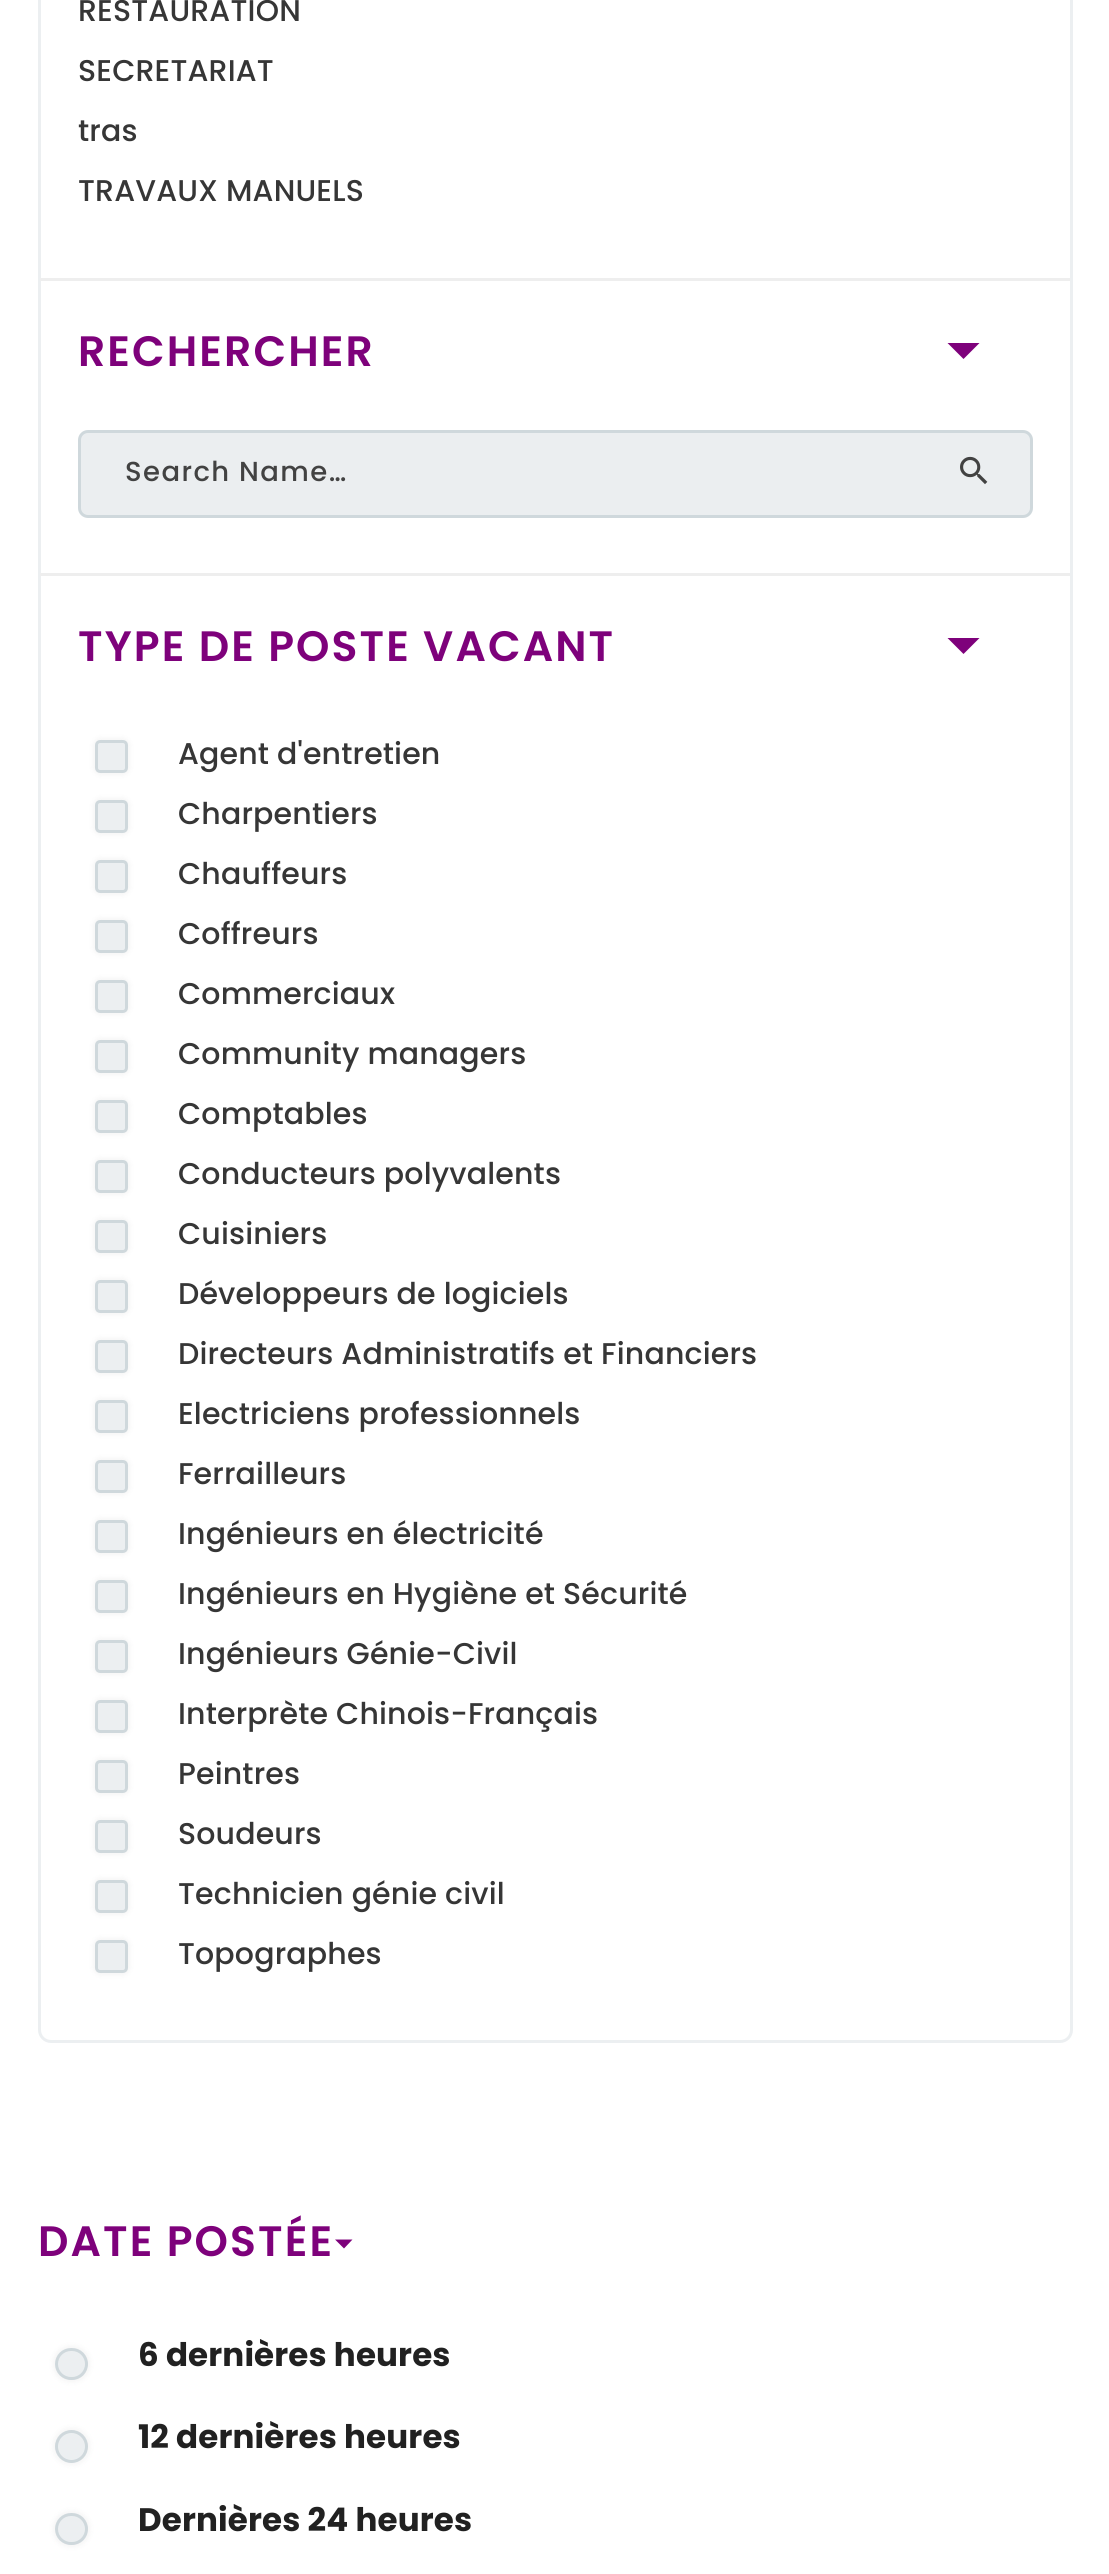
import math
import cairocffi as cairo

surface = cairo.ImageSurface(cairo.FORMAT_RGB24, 1109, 2574)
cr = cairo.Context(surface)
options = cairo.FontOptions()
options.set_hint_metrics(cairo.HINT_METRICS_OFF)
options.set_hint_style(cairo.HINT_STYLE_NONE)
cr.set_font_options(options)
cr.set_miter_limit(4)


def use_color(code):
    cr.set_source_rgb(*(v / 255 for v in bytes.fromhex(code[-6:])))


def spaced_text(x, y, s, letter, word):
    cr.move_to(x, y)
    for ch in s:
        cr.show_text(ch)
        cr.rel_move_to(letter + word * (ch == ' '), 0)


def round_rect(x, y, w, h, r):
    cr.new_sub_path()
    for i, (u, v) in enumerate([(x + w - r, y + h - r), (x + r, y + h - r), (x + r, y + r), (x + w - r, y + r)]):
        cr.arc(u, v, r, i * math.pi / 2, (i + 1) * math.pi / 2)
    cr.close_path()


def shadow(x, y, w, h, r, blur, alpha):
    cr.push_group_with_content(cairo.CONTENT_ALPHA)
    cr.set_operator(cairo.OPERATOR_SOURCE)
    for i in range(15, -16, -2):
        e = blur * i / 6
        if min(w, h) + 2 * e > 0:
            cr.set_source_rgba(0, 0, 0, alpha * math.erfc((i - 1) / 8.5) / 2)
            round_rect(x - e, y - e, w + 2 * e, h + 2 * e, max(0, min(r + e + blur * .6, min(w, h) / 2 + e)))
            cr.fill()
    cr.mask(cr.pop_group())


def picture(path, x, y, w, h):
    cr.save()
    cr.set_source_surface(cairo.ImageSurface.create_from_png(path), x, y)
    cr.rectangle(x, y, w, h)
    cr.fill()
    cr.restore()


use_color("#ffffff")
cr.paint()
round_rect(39.5, -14.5, 1032, 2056, 11.5)
use_color("#eceff1")
cr.set_line_width(3)
cr.stroke()
use_color("#eeeeee")
cr.rectangle(40, 278, 1030, 3)
cr.fill()
cr.select_font_face("Poppins Medium")
cr.set_font_size(30)
use_color("#363636")
spaced_text(78, 21, "RESTAURATION", 0.15, 0)
spaced_text(78, 81, "SECRETARIAT", 0.15, 0)
spaced_text(78, 141, "tras", 0.15, 0)
spaced_text(78, 201, "TRAVAUX MANUELS", 0.15, 0)
use_color("#eeeeee")
cr.rectangle(40, 573, 1030, 3)
cr.fill()
cr.select_font_face("Poppins SemiBold")
cr.set_font_size(42.5)
use_color("#7e017b")
spaced_text(78, 366, "RECHERCHER", 2.1, 0)
cr.new_path()
cr.move_to(947.5, 343)
cr.line_to(979.5, 343)
cr.line_to(963.5, 359)
cr.close_path()
cr.fill()
use_color("#ebeef0")
round_rect(79.5, 431.5, 952, 85, 8.5)
cr.fill_preserve()
use_color("#cfd8dc")
cr.stroke()
cr.select_font_face("Poppins Medium")
cr.set_font_size(27.5)
use_color("#424242")
spaced_text(125, 481, "Search Name…", 1.4, 0)
picture("img1.png", 960, 456, 28, 29)
cr.select_font_face("Poppins SemiBold")
cr.set_font_size(42.5)
use_color("#7e017b")
spaced_text(78, 661, "TYPE DE POSTE VACANT", 2.1, 0)
cr.new_path()
cr.move_to(947.5, 638)
cr.line_to(979.5, 638)
cr.line_to(963.5, 654)
cr.close_path()
cr.fill()
use_color("#000000")
shadow(95, 740, 33, 33, 5, 4, 0.07)
use_color("#eceff1")
round_rect(96.5, 741.5, 30, 30, 3.5)
cr.fill_preserve()
use_color("#cfd8dc")
cr.stroke()
cr.select_font_face("Poppins Medium")
cr.set_font_size(30)
use_color("#363636")
spaced_text(178, 764, "Agent d'entretien", 0.15, 0)
use_color("#000000")
shadow(95, 800, 33, 33, 5, 4, 0.07)
use_color("#eceff1")
round_rect(96.5, 801.5, 30, 30, 3.5)
cr.fill_preserve()
use_color("#cfd8dc")
cr.stroke()
use_color("#363636")
spaced_text(178, 824, "Charpentiers", 0.15, 0)
use_color("#000000")
shadow(95, 860, 33, 33, 5, 4, 0.07)
use_color("#eceff1")
round_rect(96.5, 861.5, 30, 30, 3.5)
cr.fill_preserve()
use_color("#cfd8dc")
cr.stroke()
use_color("#363636")
spaced_text(178, 884, "Chauffeurs", 0.15, 0)
use_color("#000000")
shadow(95, 920, 33, 33, 5, 4, 0.07)
use_color("#eceff1")
round_rect(96.5, 921.5, 30, 30, 3.5)
cr.fill_preserve()
use_color("#cfd8dc")
cr.stroke()
use_color("#363636")
spaced_text(178, 944, "Coffreurs", 0.15, 0)
use_color("#000000")
shadow(95, 980, 33, 33, 5, 4, 0.07)
use_color("#eceff1")
round_rect(96.5, 981.5, 30, 30, 3.5)
cr.fill_preserve()
use_color("#cfd8dc")
cr.stroke()
use_color("#363636")
spaced_text(178, 1004, "Commerciaux", 0.15, 0)
use_color("#000000")
shadow(95, 1040, 33, 33, 5, 4, 0.07)
use_color("#eceff1")
round_rect(96.5, 1041.5, 30, 30, 3.5)
cr.fill_preserve()
use_color("#cfd8dc")
cr.stroke()
use_color("#363636")
spaced_text(178, 1064, "Community managers", 0.15, 0)
use_color("#000000")
shadow(95, 1100, 33, 33, 5, 4, 0.07)
use_color("#eceff1")
round_rect(96.5, 1101.5, 30, 30, 3.5)
cr.fill_preserve()
use_color("#cfd8dc")
cr.stroke()
use_color("#363636")
spaced_text(178, 1124, "Comptables", 0.15, 0)
use_color("#000000")
shadow(95, 1160, 33, 33, 5, 4, 0.07)
use_color("#eceff1")
round_rect(96.5, 1161.5, 30, 30, 3.5)
cr.fill_preserve()
use_color("#cfd8dc")
cr.stroke()
use_color("#363636")
spaced_text(178, 1184, "Conducteurs polyvalents", 0.15, 0)
use_color("#000000")
shadow(95, 1220, 33, 33, 5, 4, 0.07)
use_color("#eceff1")
round_rect(96.5, 1221.5, 30, 30, 3.5)
cr.fill_preserve()
use_color("#cfd8dc")
cr.stroke()
use_color("#363636")
spaced_text(178, 1244, "Cuisiniers", 0.15, 0)
use_color("#000000")
shadow(95, 1280, 33, 33, 5, 4, 0.07)
use_color("#eceff1")
round_rect(96.5, 1281.5, 30, 30, 3.5)
cr.fill_preserve()
use_color("#cfd8dc")
cr.stroke()
use_color("#363636")
spaced_text(178, 1304, "Développeurs de logiciels", 0.15, 0)
use_color("#000000")
shadow(95, 1340, 33, 33, 5, 4, 0.07)
use_color("#eceff1")
round_rect(96.5, 1341.5, 30, 30, 3.5)
cr.fill_preserve()
use_color("#cfd8dc")
cr.stroke()
use_color("#363636")
spaced_text(178, 1364, "Directeurs Administratifs et Financiers", 0.15, 0)
use_color("#000000")
shadow(95, 1400, 33, 33, 5, 4, 0.07)
use_color("#eceff1")
round_rect(96.5, 1401.5, 30, 30, 3.5)
cr.fill_preserve()
use_color("#cfd8dc")
cr.stroke()
use_color("#363636")
spaced_text(178, 1424, "Electriciens professionnels", 0.15, 0)
use_color("#000000")
shadow(95, 1460, 33, 33, 5, 4, 0.07)
use_color("#eceff1")
round_rect(96.5, 1461.5, 30, 30, 3.5)
cr.fill_preserve()
use_color("#cfd8dc")
cr.stroke()
use_color("#363636")
spaced_text(178, 1484, "Ferrailleurs", 0.15, 0)
use_color("#000000")
shadow(95, 1520, 33, 33, 5, 4, 0.07)
use_color("#eceff1")
round_rect(96.5, 1521.5, 30, 30, 3.5)
cr.fill_preserve()
use_color("#cfd8dc")
cr.stroke()
use_color("#363636")
spaced_text(178, 1544, "Ingénieurs en électricité", 0.15, 0)
use_color("#000000")
shadow(95, 1580, 33, 33, 5, 4, 0.07)
use_color("#eceff1")
round_rect(96.5, 1581.5, 30, 30, 3.5)
cr.fill_preserve()
use_color("#cfd8dc")
cr.stroke()
use_color("#363636")
spaced_text(178, 1604, "Ingénieurs en Hygiène et Sécurité", 0.15, 0)
use_color("#000000")
shadow(95, 1640, 33, 33, 5, 4, 0.07)
use_color("#eceff1")
round_rect(96.5, 1641.5, 30, 30, 3.5)
cr.fill_preserve()
use_color("#cfd8dc")
cr.stroke()
use_color("#363636")
spaced_text(178, 1664, "Ingénieurs Génie-Civil", 0.15, 0)
use_color("#000000")
shadow(95, 1700, 33, 33, 5, 4, 0.07)
use_color("#eceff1")
round_rect(96.5, 1701.5, 30, 30, 3.5)
cr.fill_preserve()
use_color("#cfd8dc")
cr.stroke()
use_color("#363636")
spaced_text(178, 1724, "Interprète Chinois-Français", 0.15, 0)
use_color("#000000")
shadow(95, 1760, 33, 33, 5, 4, 0.07)
use_color("#eceff1")
round_rect(96.5, 1761.5, 30, 30, 3.5)
cr.fill_preserve()
use_color("#cfd8dc")
cr.stroke()
use_color("#363636")
spaced_text(178, 1784, "Peintres", 0.15, 0)
use_color("#000000")
shadow(95, 1820, 33, 33, 5, 4, 0.07)
use_color("#eceff1")
round_rect(96.5, 1821.5, 30, 30, 3.5)
cr.fill_preserve()
use_color("#cfd8dc")
cr.stroke()
use_color("#363636")
spaced_text(178, 1844, "Soudeurs", 0.15, 0)
use_color("#000000")
shadow(95, 1880, 33, 33, 5, 4, 0.07)
use_color("#eceff1")
round_rect(96.5, 1881.5, 30, 30, 3.5)
cr.fill_preserve()
use_color("#cfd8dc")
cr.stroke()
use_color("#363636")
spaced_text(178, 1904, "Technicien génie civil", 0.15, 0)
use_color("#000000")
shadow(95, 1940, 33, 33, 5, 4, 0.07)
use_color("#eceff1")
round_rect(96.5, 1941.5, 30, 30, 3.5)
cr.fill_preserve()
use_color("#cfd8dc")
cr.stroke()
use_color("#363636")
spaced_text(178, 1964, "Topographes", 0.15, 0)
cr.select_font_face("Poppins SemiBold")
cr.set_font_size(42.5)
use_color("#7e017b")
spaced_text(38, 2256, "DATE POSTÉE", 2.1, 0)
cr.new_path()
cr.move_to(335, 2239.5)
cr.line_to(352.5, 2239.5)
cr.line_to(344, 2248.5)
cr.close_path()
cr.fill()
use_color("#000000")
shadow(55, 2348, 33, 32, 16, 4, 0.07)
use_color("#eceff1")
round_rect(56.5, 2349.5, 30, 29, 14.5)
cr.fill_preserve()
use_color("#cfd8dc")
cr.stroke()
cr.select_font_face("Poppins", cairo.FONT_SLANT_NORMAL, cairo.FONT_WEIGHT_BOLD)
cr.set_font_size(32.5)
use_color("#212121")
spaced_text(138, 2366, "6 dernières heures", 0.15, 0)
use_color("#000000")
shadow(55, 2430, 33, 33, 16.5, 4, 0.07)
use_color("#eceff1")
cr.arc(71.5, 2446.5, 15, 0, 2 * math.pi)
cr.fill_preserve()
use_color("#cfd8dc")
cr.stroke()
use_color("#212121")
spaced_text(138, 2448, "12 dernières heures", 0.15, 0)
use_color("#000000")
shadow(55, 2513, 33, 32, 16, 4, 0.07)
use_color("#eceff1")
round_rect(56.5, 2514.5, 30, 29, 14.5)
cr.fill_preserve()
use_color("#cfd8dc")
cr.stroke()
use_color("#212121")
spaced_text(138, 2531, "Dernières 24 heures", 0.15, 0)
surface.write_to_png("result.png")
